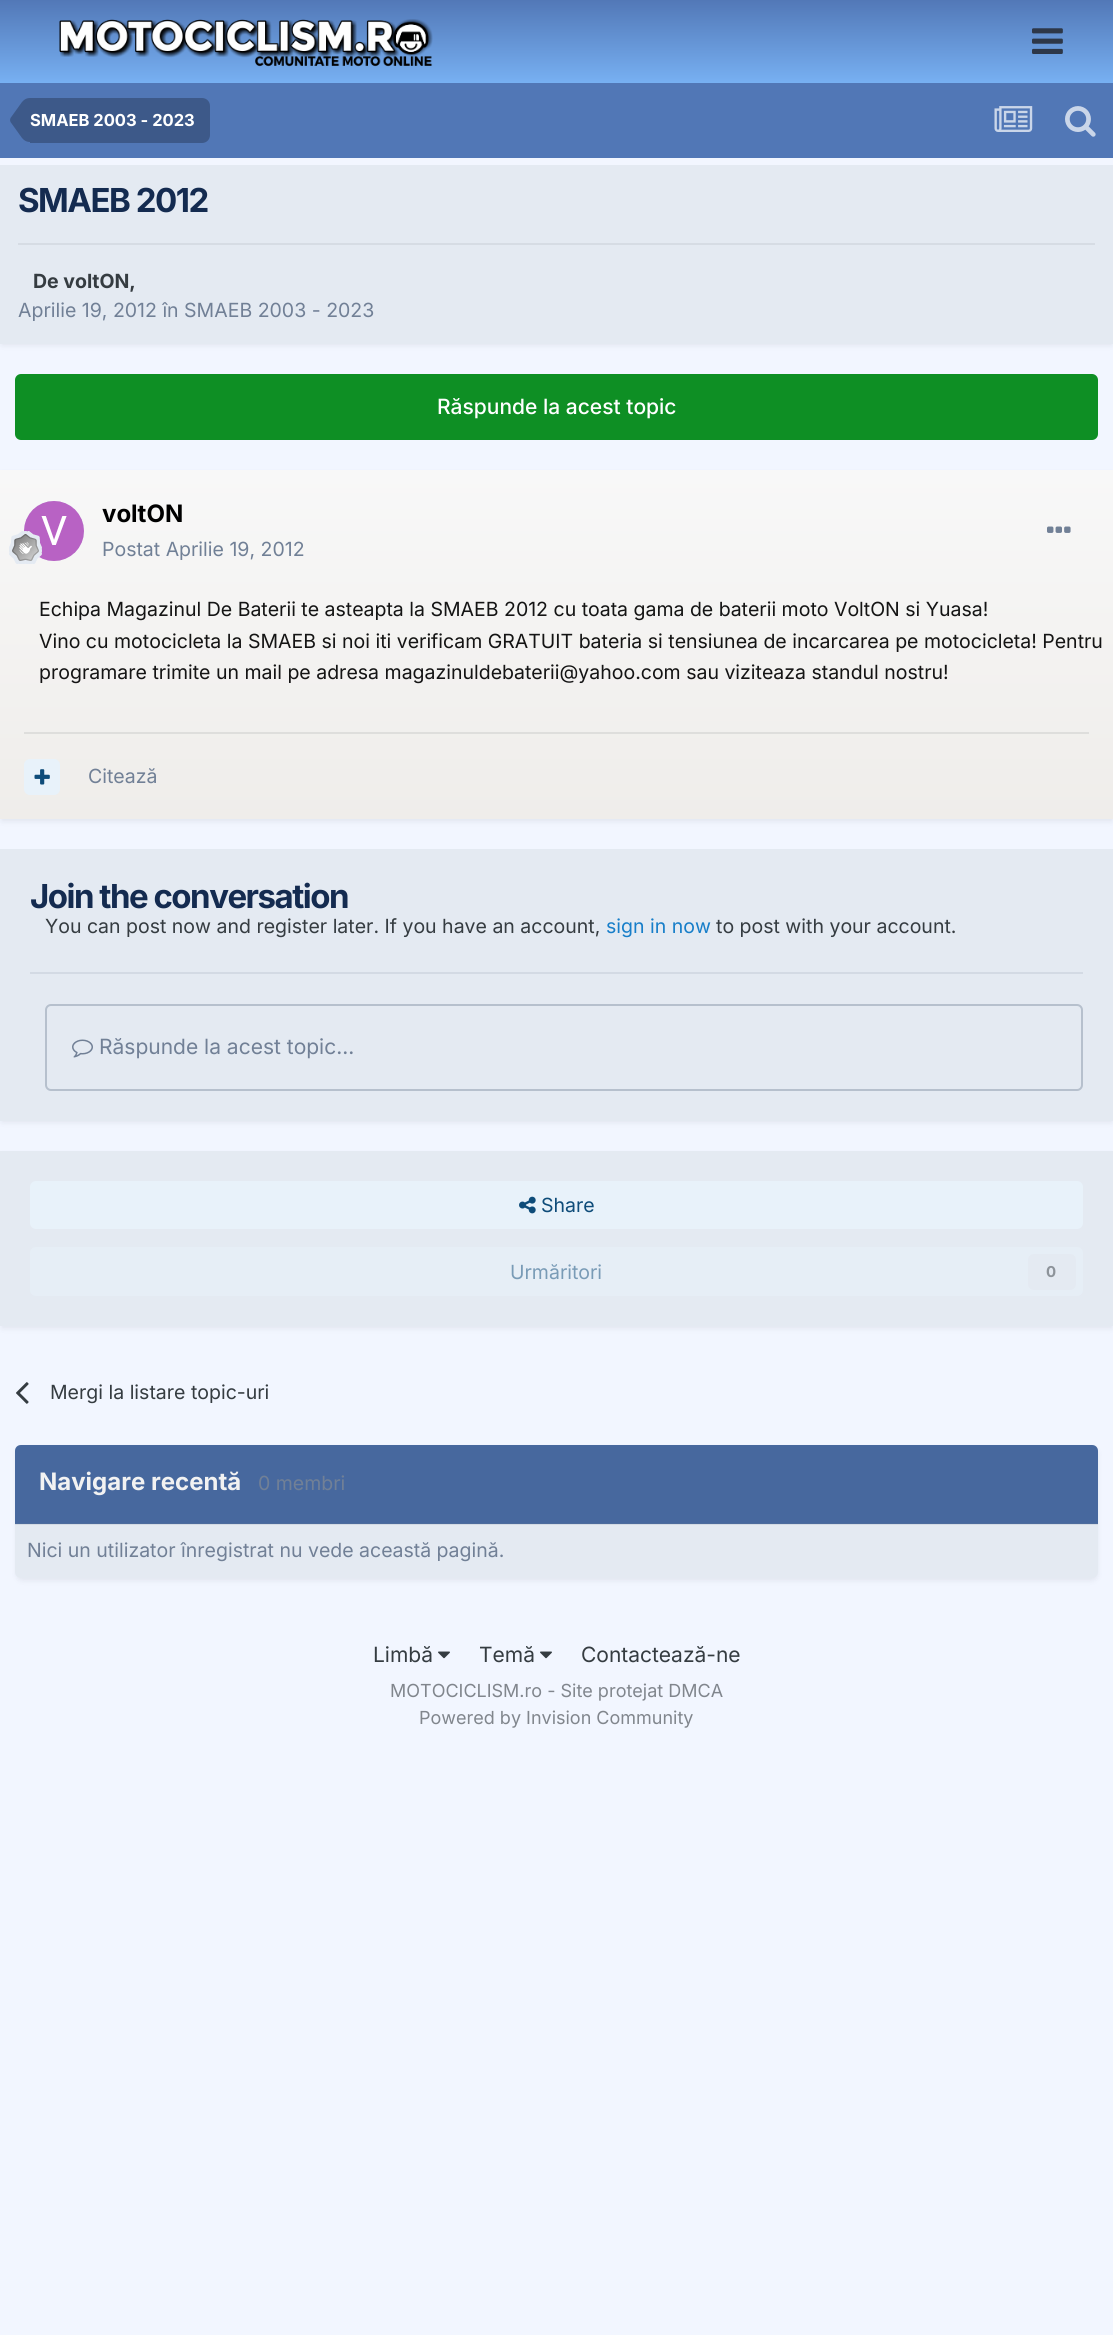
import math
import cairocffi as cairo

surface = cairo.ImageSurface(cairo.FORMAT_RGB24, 1113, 2335)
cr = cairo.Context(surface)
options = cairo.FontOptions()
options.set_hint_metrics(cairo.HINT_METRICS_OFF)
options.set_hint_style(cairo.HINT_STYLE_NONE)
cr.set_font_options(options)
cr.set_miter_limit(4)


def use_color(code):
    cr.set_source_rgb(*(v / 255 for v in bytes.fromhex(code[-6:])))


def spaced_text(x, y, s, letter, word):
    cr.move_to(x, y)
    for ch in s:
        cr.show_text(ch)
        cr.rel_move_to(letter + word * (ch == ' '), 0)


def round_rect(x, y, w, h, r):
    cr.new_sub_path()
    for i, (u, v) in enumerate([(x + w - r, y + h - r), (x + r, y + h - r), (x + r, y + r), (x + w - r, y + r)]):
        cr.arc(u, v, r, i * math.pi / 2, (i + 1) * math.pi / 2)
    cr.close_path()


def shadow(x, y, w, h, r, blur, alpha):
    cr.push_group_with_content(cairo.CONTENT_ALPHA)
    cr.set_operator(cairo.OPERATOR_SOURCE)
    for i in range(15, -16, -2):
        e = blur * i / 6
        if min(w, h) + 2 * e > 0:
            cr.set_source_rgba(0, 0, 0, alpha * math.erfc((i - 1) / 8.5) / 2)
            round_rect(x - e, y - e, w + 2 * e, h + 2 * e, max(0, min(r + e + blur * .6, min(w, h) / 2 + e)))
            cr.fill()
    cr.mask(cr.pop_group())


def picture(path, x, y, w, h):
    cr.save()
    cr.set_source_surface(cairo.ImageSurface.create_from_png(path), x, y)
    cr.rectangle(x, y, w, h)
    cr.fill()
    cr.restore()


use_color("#f2f6ff")
cr.paint()
gradient = cairo.LinearGradient(557, 0, 557, 83)
gradient.add_color_stop_rgba(0, 0.322, 0.471, 0.718, 1)
gradient.add_color_stop_rgba(1, 0.467, 0.69, 0.949, 1)
cr.set_source(gradient)
cr.rectangle(0, 0, 1113, 83)
cr.fill()
picture("img1.png", 59, 19, 374, 48)
picture("img2.png", 1032, 28, 31, 26)
use_color("#5177b6")
cr.rectangle(0, 83, 1113, 75)
cr.fill()
use_color("#3d5989")
cr.new_path()
cr.move_to(30, 98)
cr.line_to(202, 98)
cr.curve_to(206.5, 98, 210, 101.5, 210, 106)
cr.line_to(210, 135)
cr.curve_to(210, 139.5, 206.5, 143, 202, 143)
cr.line_to(30, 143)
cr.close_path()
cr.fill()
cr.new_path()
cr.move_to(30, 120)
cr.line_to(30, 142)
cr.curve_to(27, 142, 24.5, 141, 22, 138)
cr.line_to(10.5, 122)
cr.line_to(10, 120)
cr.close_path()
cr.move_to(30, 120)
cr.line_to(10, 120)
cr.line_to(10.5, 118)
cr.line_to(22, 102)
cr.curve_to(24.5, 99, 27, 98, 30, 98)
cr.close_path()
cr.fill()
cr.select_font_face("Inter", cairo.FONT_SLANT_NORMAL, cairo.FONT_WEIGHT_BOLD)
cr.set_font_size(16.5)
use_color("#ffffff")
cr.move_to(30, 126)
cr.show_text("SMAEB 2003 - 2023")
picture("img3.png", 994, 106, 39, 26)
picture("img4.png", 1065, 106, 31, 31)
use_color("#2d3748")
shadow(2, 170, 1110, 175, 0, 3, 0.1)
use_color("#e4eaf2")
cr.rectangle(0, 165, 1113, 179)
cr.fill()
cr.set_font_size(33)
use_color("#142b50")
spaced_text(18, 212, "SMAEB 2012", -1.5, 0)
use_color("#d6dce4")
cr.rectangle(18, 243, 1077, 2)
cr.fill()
cr.set_font_size(19.5)
use_color("#353c41")
cr.move_to(33, 288)
cr.show_text("De voltON,")
cr.select_font_face("Inter")
use_color("#718096")
cr.move_to(18, 317)
cr.show_text("Aprilie 19, 2012 în SMAEB 2003 - 2023")
use_color("#0e8f24")
round_rect(15, 374, 1083, 66, 6)
cr.fill()
cr.select_font_face("Inter Medium")
cr.set_font_size(21)
use_color("#ffffff")
cr.move_to(437, 414)
cr.show_text("Răspunde la acest topic")
use_color("#2d3748")
shadow(2, 474, 1110, 347, 0, 3, 0.1)
gradient = cairo.LinearGradient(557, 469, 557, 819)
gradient.add_color_stop_rgba(0, 0.973, 0.973, 0.973, 1)
gradient.add_color_stop_rgba(1, 0.937, 0.929, 0.918, 1)
cr.set_source(gradient)
cr.rectangle(0, 470, 1113, 349)
cr.fill()
use_color("#e4eaf2")
cr.arc(54, 531, 30, 0, 2 * math.pi)
cr.fill()
picture("img5.png", 24, 501, 60, 60)
picture("img6.png", 9, 531, 33, 33)
cr.select_font_face("Inter", cairo.FONT_SLANT_NORMAL, cairo.FONT_WEIGHT_BOLD)
cr.set_font_size(24)
use_color("#000000")
cr.move_to(102, 522)
cr.show_text("voltON")
cr.select_font_face("Inter")
cr.set_font_size(19.5)
use_color("#718096")
cr.move_to(102, 556)
cr.show_text("Postat Aprilie 19, 2012")
picture("img7.png", 1047, 526, 24, 7)
use_color("#141414")
cr.move_to(39, 616)
cr.show_text("Echipa Magazinul De Baterii te asteapta la SMAEB 2012 cu toata gama de baterii moto VoltON si Yuasa!")
cr.move_to(39, 648)
cr.show_text("Vino cu motocicleta la SMAEB si noi iti verificam GRATUIT bateria si tensiunea de incarcarea pe motocicleta! Pentru")
cr.move_to(39, 679)
cr.show_text("programare trimite un mail pe adresa magazinuldebaterii@yahoo.com sau viziteaza standul nostru!")
use_color("#dededc")
cr.rectangle(24, 732, 1065, 2)
cr.fill()
use_color("#e8f2fa")
round_rect(24, 759, 36, 36, 6)
cr.fill()
picture("img8.png", 34, 769, 16, 16)
use_color("#718096")
cr.move_to(88, 783)
cr.show_text("Citează")
use_color("#2d3748")
shadow(2, 854, 1110, 268, 0, 3, 0.1)
use_color("#e4eaf2")
cr.rectangle(0, 849, 1113, 272)
cr.fill()
use_color("#d3dae4")
cr.rectangle(30, 972, 1053, 2)
cr.fill()
cr.select_font_face("Inter", cairo.FONT_SLANT_NORMAL, cairo.FONT_WEIGHT_BOLD)
cr.set_font_size(33)
use_color("#142b50")
spaced_text(30, 908, "Join the conversation", -1.5, 0)
cr.select_font_face("Inter")
cr.set_font_size(19.5)
use_color("#353c41")
cr.move_to(45, 933)
cr.show_text("You can post now and register later. If you have an account,")
use_color("#177ec9")
cr.move_to(606, 933)
cr.show_text("sign in now")
use_color("#353c41")
cr.move_to(716, 933)
cr.show_text("to post with your account.")
round_rect(46, 1005, 1036, 85, 5)
use_color("#b6c0cd")
cr.stroke()
picture("img9.png", 72, 1039, 21, 19)
cr.set_font_size(21)
use_color("#718096")
cr.move_to(99, 1054)
cr.show_text("Răspunde la acest topic...")
use_color("#2d3748")
shadow(2, 1155, 1110, 173, 0, 3, 0.1)
use_color("#e4eaf2")
cr.rectangle(0, 1151, 1113, 175)
cr.fill()
use_color("#e8f2fa")
round_rect(30, 1181, 1053, 48, 6)
cr.fill()
picture("img10.png", 519, 1196, 17, 18)
cr.set_font_size(19.5)
use_color("#0e4c79")
cr.move_to(541, 1212)
cr.show_text("Share")
use_color("#e6eef6")
round_rect(30, 1247, 1053, 49, 6)
cr.fill()
use_color("#799bb6")
cr.move_to(510, 1279)
cr.show_text("Urmăritori")
use_color("#e4eaf2")
round_rect(1028, 1254, 48, 36, 6)
cr.fill()
cr.select_font_face("Inter", cairo.FONT_SLANT_NORMAL, cairo.FONT_WEIGHT_BOLD)
cr.set_font_size(15)
use_color("#8d939a")
cr.move_to(1046, 1277)
cr.show_text("0")
picture("img11.png", 16, 1382, 13, 22)
cr.select_font_face("Inter")
cr.set_font_size(19.5)
use_color("#353c41")
cr.move_to(50, 1399)
cr.show_text("Mergi la listare topic-uri")
use_color("#2d3748")
shadow(17, 1449, 1080, 131, 5, 3, 0.1)
use_color("#e4eaf2")
round_rect(15, 1445, 1083, 133, 6)
cr.fill()
use_color("#d3dae4")
cr.rectangle(15, 1524, 1083, 1)
cr.fill()
use_color("#47689e")
cr.new_path()
cr.move_to(21, 1445)
cr.line_to(1092, 1445)
cr.curve_to(1095.5, 1445, 1098, 1447.5, 1098, 1451)
cr.line_to(1098, 1524)
cr.line_to(15, 1524)
cr.line_to(15, 1451)
cr.curve_to(15, 1447.5, 17.5, 1445, 21, 1445)
cr.close_path()
cr.fill()
use_color("#4d6c9d")
cr.rectangle(15, 1523, 1083, 1)
cr.fill()
cr.select_font_face("Inter", cairo.FONT_SLANT_NORMAL, cairo.FONT_WEIGHT_BOLD)
cr.set_font_size(24)
use_color("#f2f2f2")
cr.move_to(39, 1490)
cr.show_text("Navigare recentă")
cr.select_font_face("Inter")
cr.set_font_size(19.5)
use_color("#718096")
cr.move_to(258, 1490)
cr.show_text("0 membri")
cr.move_to(27, 1557)
cr.show_text("Nici un utilizator înregistrat nu vede această pagină.")
cr.set_font_size(21)
use_color("#353c41")
cr.move_to(373, 1662)
cr.show_text("Limbă")
picture("img12.png", 438, 1651, 12, 8)
cr.move_to(479, 1662)
cr.show_text("Temă")
picture("img12.png", 540, 1651, 12, 8)
cr.move_to(581, 1662)
cr.show_text("Contactează-ne")
cr.set_font_size(18)
use_color("#81868d")
cr.move_to(390, 1697)
cr.show_text("MOTOCICLISM.ro - Site protejat DMCA")
cr.move_to(419, 1724)
cr.show_text("Powered by Invision Community")
surface.write_to_png("result.png")
